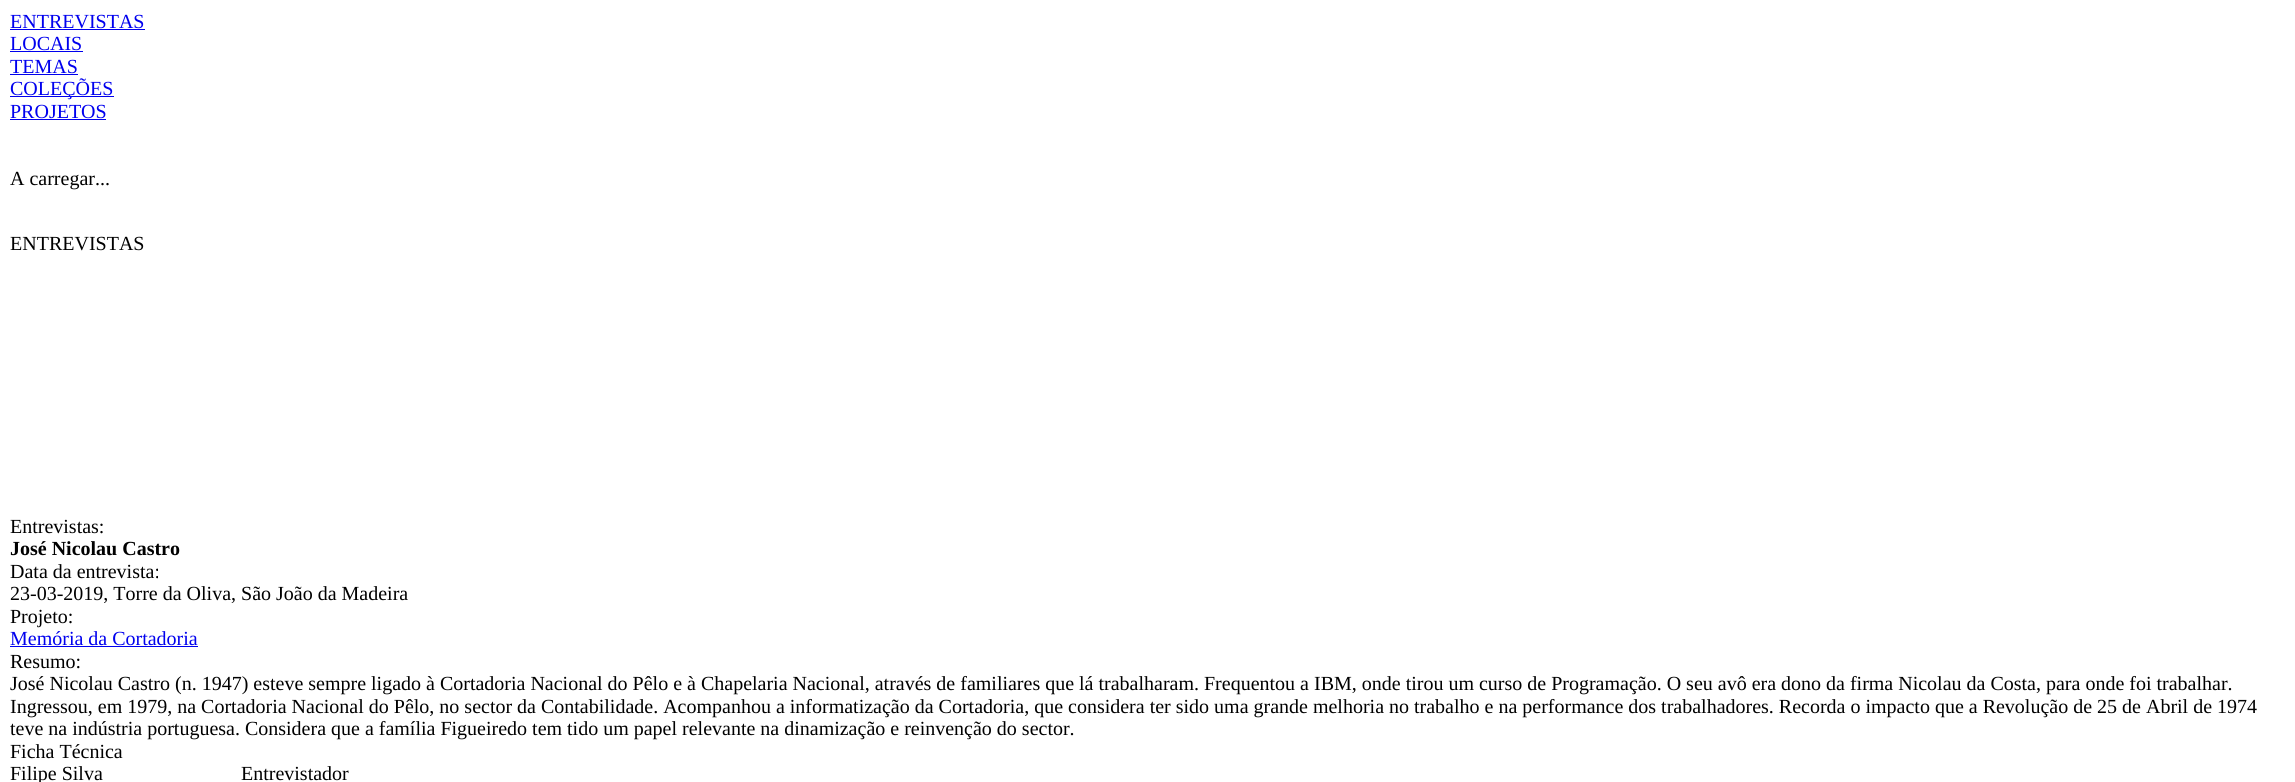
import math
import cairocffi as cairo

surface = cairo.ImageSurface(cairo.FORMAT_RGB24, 2295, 782)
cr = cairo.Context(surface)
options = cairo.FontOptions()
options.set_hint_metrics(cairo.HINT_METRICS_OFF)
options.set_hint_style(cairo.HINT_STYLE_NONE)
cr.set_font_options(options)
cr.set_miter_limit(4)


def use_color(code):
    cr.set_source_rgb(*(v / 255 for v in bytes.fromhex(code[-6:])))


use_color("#ffffff")
cr.paint()
cr.select_font_face("Liberation Serif")
cr.set_font_size(20)
use_color("#0000ee")
cr.move_to(10, 28)
cr.show_text("ENTREVISTAS")
cr.rectangle(10, 29, 135, 1)
cr.fill()
cr.move_to(10, 50)
cr.show_text("LOCAIS")
cr.rectangle(10, 51, 73, 1)
cr.fill()
cr.move_to(10, 73)
cr.show_text("TEMAS")
cr.rectangle(10, 74, 68, 1)
cr.fill()
cr.rectangle(10, 96, 104, 1)
cr.fill()
cr.move_to(10, 95)
cr.show_text("COLEÇÕES")
cr.move_to(10, 118)
cr.show_text("PROJETOS")
cr.rectangle(10, 119, 96, 1)
cr.fill()
use_color("#000000")
cr.move_to(10, 185)
cr.show_text("A carregar...")
cr.move_to(10, 250)
cr.show_text("ENTREVISTAS")
cr.move_to(10, 533)
cr.show_text("Entrevistas:")
cr.select_font_face("Liberation Serif", cairo.FONT_SLANT_NORMAL, cairo.FONT_WEIGHT_BOLD)
cr.move_to(10, 555)
cr.show_text("José Nicolau Castro")
cr.select_font_face("Liberation Serif")
cr.move_to(10, 578)
cr.show_text("Data da entrevista:")
cr.move_to(10, 600)
cr.show_text("23-03-2019, Torre da Oliva, São João da Madeira")
cr.move_to(10, 623)
cr.show_text("Projeto:")
use_color("#0000ee")
cr.move_to(10, 645)
cr.show_text("Memória da Cortadoria")
cr.rectangle(10, 646, 188, 1)
cr.fill()
use_color("#000000")
cr.move_to(10, 668)
cr.show_text("Resumo:")
cr.move_to(10, 690)
cr.show_text("José Nicolau Castro (n. 1947) esteve sempre ligado à Cortadoria Nacional do Pêlo e à Chapelaria Nacional, através de familiares que lá trabalharam. Frequentou a IBM, onde tirou um curso de Programação. O seu avô era dono da firma Nicolau da Costa, para onde foi trabalhar.")
cr.move_to(10, 713)
cr.show_text("Ingressou, em 1979, na Cortadoria Nacional do Pêlo, no sector da Contabilidade. Acompanhou a informatização da Cortadoria, que considera ter sido uma grande melhoria no trabalho e na performance dos trabalhadores. Recorda o impacto que a Revolução de 25 de Abril de 1974")
cr.move_to(10, 735)
cr.show_text("teve na indústria portuguesa. Considera que a família Figueiredo tem tido um papel relevante na dinamização e reinvenção do sector.")
cr.move_to(10, 758)
cr.show_text("Ficha Técnica")
cr.move_to(10, 780)
cr.show_text("Filipe Silva")
cr.move_to(241, 780)
cr.show_text("Entrevistador")
surface.write_to_png("result.png")
